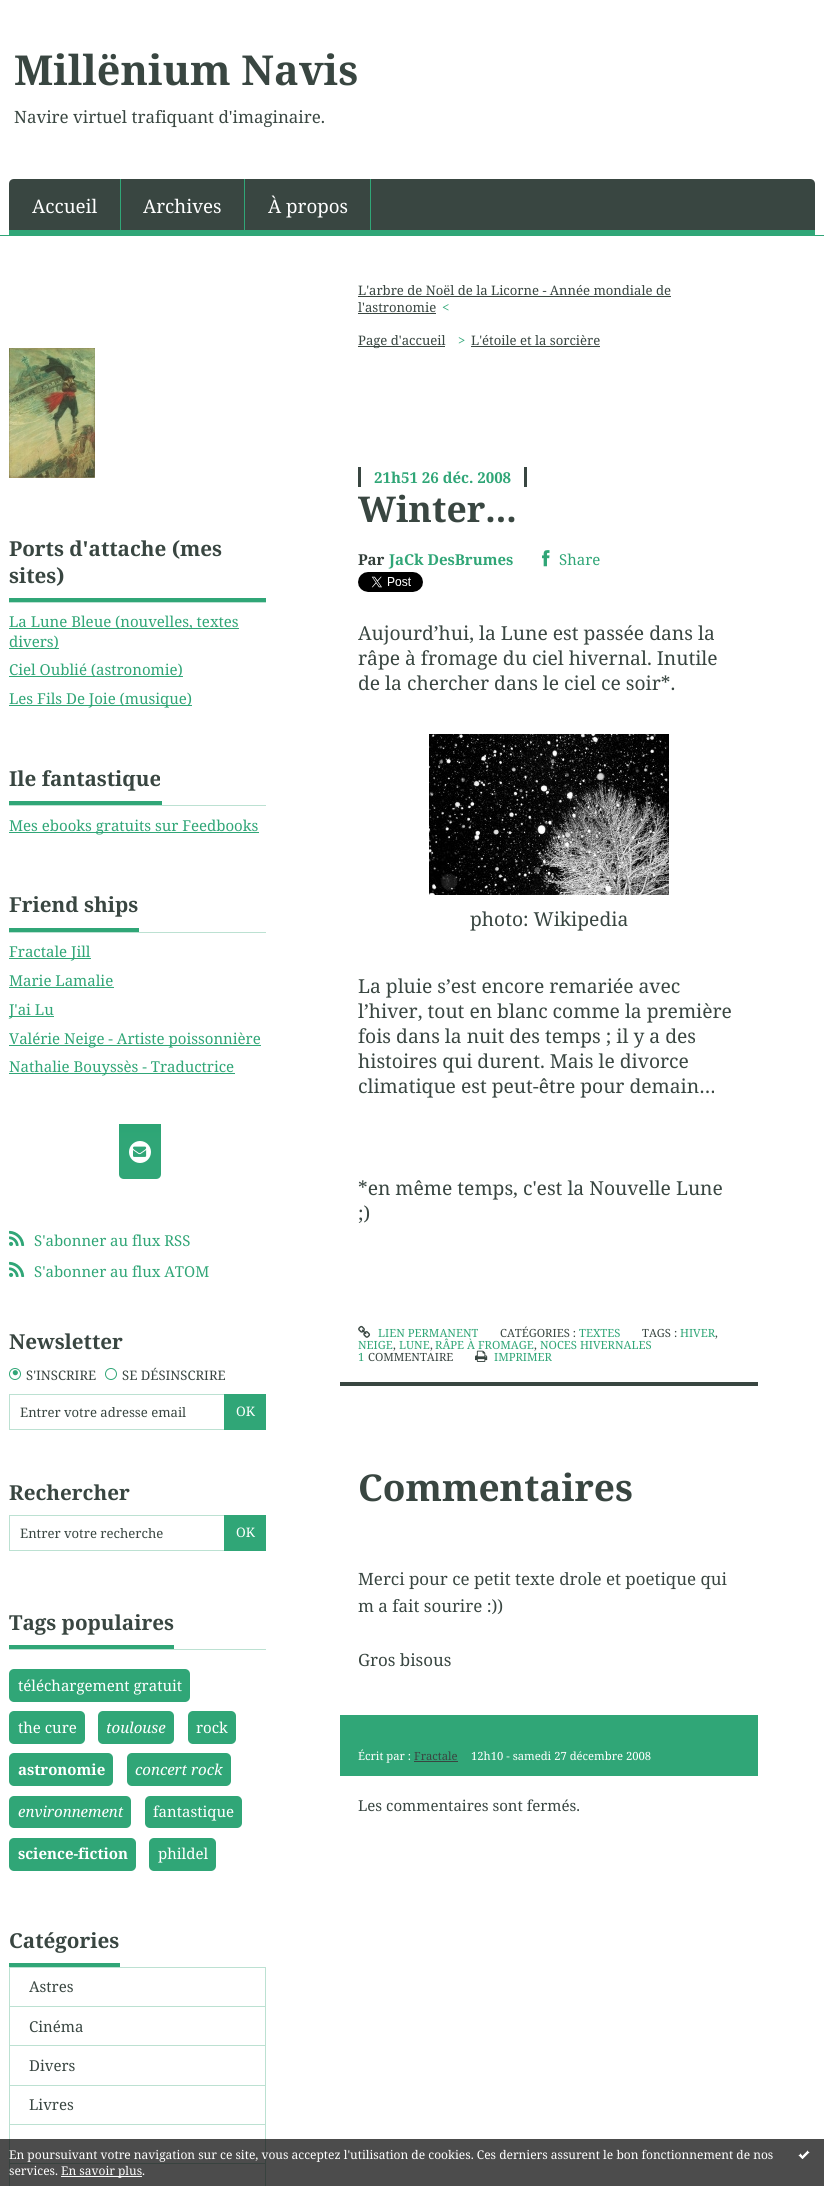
import math
import cairocffi as cairo

surface = cairo.ImageSurface(cairo.FORMAT_RGB24, 824, 2186)
cr = cairo.Context(surface)
options = cairo.FontOptions()
options.set_hint_metrics(cairo.HINT_METRICS_OFF)
options.set_hint_style(cairo.HINT_STYLE_NONE)
cr.set_font_options(options)
cr.set_miter_limit(4)


def use_color(code):
    cr.set_source_rgb(*(v / 255 for v in bytes.fromhex(code[-6:])))


def round_rect(x, y, w, h, r):
    cr.new_sub_path()
    for i, (u, v) in enumerate([(x + w - r, y + h - r), (x + r, y + h - r), (x + r, y + r), (x + w - r, y + r)]):
        cr.arc(u, v, r, i * math.pi / 2, (i + 1) * math.pi / 2)
    cr.close_path()


def picture(path, x, y, w, h):
    cr.save()
    cr.set_source_surface(cairo.ImageSurface.create_from_png(path), x, y)
    cr.rectangle(x, y, w, h)
    cr.fill()
    cr.restore()


use_color("#ffffff")
cr.paint()
use_color("#30a677")
cr.rectangle(0, 235, 824, 1)
cr.fill()
cr.select_font_face("Noto Serif", cairo.FONT_SLANT_NORMAL, cairo.FONT_WEIGHT_BOLD)
cr.set_font_size(41.25)
use_color("#394641")
cr.move_to(14, 85)
cr.show_text("Millënium Navis")
cr.select_font_face("Noto Serif")
cr.set_font_size(16.9)
cr.move_to(14, 123)
cr.show_text("Navire virtuel trafiquant d'imaginaire.")
cr.new_path()
cr.move_to(14, 179)
cr.line_to(810, 179)
cr.curve_to(813, 179, 815, 181, 815, 184)
cr.line_to(815, 235)
cr.line_to(9, 235)
cr.line_to(9, 184)
cr.curve_to(9, 181, 11, 179, 14, 179)
cr.close_path()
cr.fill()
use_color("#30a677")
cr.rectangle(9, 230, 806, 5)
cr.fill()
cr.rectangle(120, 179, 1, 51)
cr.fill()
cr.set_font_size(18.75)
use_color("#ffffff")
cr.move_to(32, 213)
cr.show_text("Accueil")
use_color("#30a677")
cr.rectangle(244, 179, 1, 51)
cr.fill()
use_color("#ffffff")
cr.move_to(143, 213)
cr.show_text("Archives")
use_color("#30a677")
cr.rectangle(370, 179, 1, 51)
cr.fill()
use_color("#ffffff")
cr.move_to(268, 213)
cr.show_text("À propos")
picture("img1.png", 9, 348, 86, 130)
use_color("#bce1d2")
cr.rectangle(9, 602, 257, 1)
cr.fill()
use_color("#30a677")
cr.rectangle(9, 598, 257, 4)
cr.fill()
cr.select_font_face("Noto Serif", cairo.FONT_SLANT_NORMAL, cairo.FONT_WEIGHT_BOLD)
cr.set_font_size(20.6)
use_color("#394641")
cr.move_to(9, 556)
cr.show_text("Ports d'attache (mes")
cr.move_to(9, 583)
cr.show_text("sites)")
use_color("#30a677")
cr.rectangle(9, 628, 230, 1)
cr.fill()
cr.select_font_face("Noto Serif")
cr.set_font_size(15)
cr.move_to(9, 627)
cr.show_text("La Lune Bleue (nouvelles, textes")
cr.rectangle(9, 648, 50, 1)
cr.fill()
cr.move_to(9, 647)
cr.show_text("divers)")
cr.rectangle(9, 676, 174, 1)
cr.fill()
cr.move_to(9, 675)
cr.show_text("Ciel Oublié (astronomie)")
cr.rectangle(9, 705, 183, 1)
cr.fill()
cr.move_to(9, 704)
cr.show_text("Les Fils De Joie (musique)")
use_color("#bce1d2")
cr.rectangle(9, 805, 257, 1)
cr.fill()
use_color("#30a677")
cr.rectangle(9, 801, 153, 4)
cr.fill()
cr.select_font_face("Noto Serif", cairo.FONT_SLANT_NORMAL, cairo.FONT_WEIGHT_BOLD)
cr.set_font_size(20.6)
use_color("#394641")
cr.move_to(9, 786)
cr.show_text("Ile fantastique")
use_color("#30a677")
cr.rectangle(9, 832, 250, 1)
cr.fill()
cr.select_font_face("Noto Serif")
cr.set_font_size(15)
cr.move_to(9, 831)
cr.show_text("Mes ebooks gratuits sur Feedbooks")
use_color("#bce1d2")
cr.rectangle(9, 932, 257, 1)
cr.fill()
use_color("#30a677")
cr.rectangle(9, 928, 130, 4)
cr.fill()
cr.select_font_face("Noto Serif", cairo.FONT_SLANT_NORMAL, cairo.FONT_WEIGHT_BOLD)
cr.set_font_size(20.6)
use_color("#394641")
cr.move_to(9, 912)
cr.show_text("Friend ships")
use_color("#30a677")
cr.rectangle(9, 958, 82, 1)
cr.fill()
cr.select_font_face("Noto Serif")
cr.set_font_size(15)
cr.move_to(9, 957)
cr.show_text("Fractale Jill")
cr.move_to(9, 986)
cr.show_text("Marie Lamalie")
cr.rectangle(9, 987, 105, 1)
cr.fill()
cr.rectangle(9, 1016, 45, 1)
cr.fill()
cr.move_to(9, 1015)
cr.show_text("J'ai Lu")
cr.rectangle(9, 1045, 252, 1)
cr.fill()
cr.move_to(9, 1044)
cr.show_text("Valérie Neige - Artiste poissonnière")
cr.rectangle(9, 1073, 226, 1)
cr.fill()
cr.move_to(9, 1072)
cr.show_text("Nathalie Bouyssès - Traductrice")
gradient = cairo.LinearGradient(140, 1124, 140, 1179)
gradient.add_color_stop_rgba(0, 0.176, 0.647, 0.459, 1)
gradient.add_color_stop_rgba(0.3, 0.188, 0.651, 0.467, 1)
cr.set_source(gradient)
cr.new_path()
cr.move_to(119, 1124)
cr.line_to(161, 1124)
cr.line_to(161, 1174)
cr.curve_to(161, 1177, 159, 1179, 156, 1179)
cr.line_to(124, 1179)
cr.curve_to(121, 1179, 119, 1177, 119, 1174)
cr.close_path()
cr.fill()
use_color("#ffffff")
cr.arc(140, 1152, 11, 0, 2 * math.pi)
cr.fill()
picture("img2.png", 133, 1146, 14, 11)
picture("img3.png", 9, 1230, 16, 16)
use_color("#30a677")
cr.move_to(34, 1246)
cr.show_text("S'abonner au flux RSS")
picture("img3.png", 9, 1261, 16, 16)
cr.move_to(34, 1277)
cr.show_text("S'abonner au flux ATOM")
cr.select_font_face("Noto Serif", cairo.FONT_SLANT_NORMAL, cairo.FONT_WEIGHT_BOLD)
cr.set_font_size(20.6)
use_color("#394641")
cr.move_to(9, 1349)
cr.show_text("Newsletter")
cr.new_path()
cr.arc(15, 1374, 5.5, 0, 2 * math.pi)
use_color("#30a677")
cr.set_line_width(1)
cr.stroke()
cr.select_font_face("Liberation Sans")
cr.set_font_size(19)
cr.move_to(12, 1379)
cr.show_text("•")
cr.select_font_face("Noto Serif")
cr.set_font_size(13.1)
use_color("#394641")
cr.move_to(26, 1380)
cr.show_text("S'INSCRIRE")
cr.new_path()
cr.arc(111, 1374, 5.5, 0, 2 * math.pi)
use_color("#30a677")
cr.stroke()
use_color("#394641")
cr.move_to(122, 1380)
cr.show_text("SE DÉSINSCRIRE")
cr.rectangle(9.5, 1394.5, 256, 35)
use_color("#bce1d2")
cr.stroke()
use_color("#394641")
cr.move_to(20, 1417)
cr.show_text("Entrer votre adresse email")
use_color("#30a677")
cr.rectangle(224, 1394, 42, 36)
cr.fill()
use_color("#ffffff")
cr.move_to(236, 1416)
cr.show_text("OK")
cr.select_font_face("Noto Serif", cairo.FONT_SLANT_NORMAL, cairo.FONT_WEIGHT_BOLD)
cr.set_font_size(20.6)
use_color("#394641")
cr.move_to(9, 1500)
cr.show_text("Rechercher")
cr.rectangle(9.5, 1515.5, 256, 35)
use_color("#bce1d2")
cr.stroke()
cr.select_font_face("Noto Serif")
cr.set_font_size(13.1)
use_color("#394641")
cr.move_to(20, 1538)
cr.show_text("Entrer votre recherche")
use_color("#30a677")
cr.rectangle(224, 1515, 42, 36)
cr.fill()
use_color("#ffffff")
cr.move_to(236, 1537)
cr.show_text("OK")
use_color("#bce1d2")
cr.rectangle(9, 1649, 257, 1)
cr.fill()
use_color("#30a677")
cr.rectangle(9, 1645, 165, 4)
cr.fill()
cr.select_font_face("Noto Serif", cairo.FONT_SLANT_NORMAL, cairo.FONT_WEIGHT_BOLD)
cr.set_font_size(20.6)
use_color("#394641")
cr.move_to(9, 1630)
cr.show_text("Tags populaires")
use_color("#30a677")
round_rect(9, 1669, 181, 33, 5)
cr.fill()
cr.select_font_face("Noto Serif")
cr.set_font_size(15)
use_color("#ffffff")
cr.move_to(18, 1691)
cr.show_text("téléchargement gratuit")
use_color("#30a677")
round_rect(9, 1711, 76, 33, 5)
cr.fill()
use_color("#ffffff")
cr.move_to(18, 1733)
cr.show_text("the cure")
use_color("#30a677")
round_rect(98, 1711, 76, 33, 5)
cr.fill()
cr.select_font_face("Noto Serif", cairo.FONT_SLANT_ITALIC)
use_color("#ffffff")
cr.move_to(106, 1733)
cr.show_text("toulouse")
use_color("#30a677")
round_rect(188, 1711, 48, 33, 5)
cr.fill()
cr.select_font_face("Noto Serif")
use_color("#ffffff")
cr.move_to(196, 1733)
cr.show_text("rock")
use_color("#30a677")
round_rect(9, 1753, 104, 33, 5)
cr.fill()
cr.select_font_face("Noto Serif", cairo.FONT_SLANT_NORMAL, cairo.FONT_WEIGHT_BOLD)
use_color("#ffffff")
cr.move_to(18, 1775)
cr.show_text("astronomie")
use_color("#30a677")
round_rect(127, 1753, 104, 33, 5)
cr.fill()
cr.select_font_face("Noto Serif", cairo.FONT_SLANT_ITALIC)
use_color("#ffffff")
cr.move_to(135, 1775)
cr.show_text("concert rock")
use_color("#30a677")
round_rect(9, 1796, 122, 32, 5)
cr.fill()
use_color("#ffffff")
cr.move_to(18, 1817)
cr.show_text("environnement")
use_color("#30a677")
round_rect(145, 1796, 97, 32, 5)
cr.fill()
cr.select_font_face("Noto Serif")
use_color("#ffffff")
cr.move_to(153, 1817)
cr.show_text("fantastique")
use_color("#30a677")
round_rect(9, 1838, 127, 33, 5)
cr.fill()
cr.select_font_face("Noto Serif", cairo.FONT_SLANT_NORMAL, cairo.FONT_WEIGHT_BOLD)
use_color("#ffffff")
cr.move_to(18, 1859)
cr.show_text("science-fiction")
use_color("#30a677")
round_rect(149, 1838, 67, 33, 5)
cr.fill()
cr.select_font_face("Noto Serif")
use_color("#ffffff")
cr.move_to(158, 1859)
cr.show_text("phildel")
use_color("#bce1d2")
cr.rectangle(9, 1967, 257, 1)
cr.fill()
use_color("#30a677")
cr.rectangle(9, 1963, 111, 4)
cr.fill()
cr.select_font_face("Noto Serif", cairo.FONT_SLANT_NORMAL, cairo.FONT_WEIGHT_BOLD)
cr.set_font_size(20.6)
use_color("#394641")
cr.move_to(9, 1948)
cr.show_text("Catégories")
use_color("#bce1d2")
cr.rectangle(265, 1968, 1, 218)
cr.fill()
cr.rectangle(9, 2006, 257, 1)
cr.fill()
cr.rectangle(9, 1968, 1, 39)
cr.fill()
cr.select_font_face("Noto Serif")
cr.set_font_size(15)
use_color("#394641")
cr.move_to(29, 1992)
cr.show_text("Astres")
use_color("#bce1d2")
cr.rectangle(9, 2045, 257, 1)
cr.fill()
cr.rectangle(9, 2007, 1, 39)
cr.fill()
use_color("#394641")
cr.move_to(29, 2032)
cr.show_text("Cinéma")
use_color("#bce1d2")
cr.rectangle(9, 2085, 257, 1)
cr.fill()
cr.rectangle(9, 2046, 1, 40)
cr.fill()
use_color("#394641")
cr.move_to(29, 2071)
cr.show_text("Divers")
use_color("#bce1d2")
cr.rectangle(9, 2124, 257, 1)
cr.fill()
cr.rectangle(9, 2086, 1, 39)
cr.fill()
use_color("#394641")
cr.move_to(29, 2110)
cr.show_text("Livres")
use_color("#bce1d2")
cr.rectangle(9, 2163, 257, 1)
cr.fill()
cr.rectangle(9, 2125, 1, 61)
cr.fill()
cr.set_font_size(13.1)
use_color("#394641")
cr.move_to(358, 295)
cr.show_text("L'arbre de Noël de la Licorne - Année mondiale de")
cr.rectangle(358, 296, 313, 1)
cr.fill()
cr.move_to(358, 312)
cr.show_text("l'astronomie")
cr.rectangle(358, 313, 78, 1)
cr.fill()
use_color("#30a677")
cr.move_to(442, 312)
cr.show_text("<")
use_color("#394641")
cr.rectangle(358, 346, 87, 1)
cr.fill()
cr.move_to(358, 345)
cr.show_text("Page d'accueil")
use_color("#30a677")
cr.move_to(458, 345)
cr.show_text(">")
use_color("#394641")
cr.move_to(471, 345)
cr.show_text("L'étoile et la sorcière")
cr.rectangle(471, 346, 129, 1)
cr.fill()
cr.select_font_face("Noto Serif", cairo.FONT_SLANT_NORMAL, cairo.FONT_WEIGHT_BOLD)
cr.set_font_size(15)
use_color("#30a677")
cr.move_to(374, 483)
cr.show_text("21h51 26 déc. 2008")
use_color("#394641")
cr.rectangle(358, 467, 3, 20)
cr.fill()
cr.rectangle(524, 467, 3, 20)
cr.fill()
cr.set_font_size(35.5)
cr.move_to(358, 522)
cr.show_text("Winter...")
cr.set_font_size(15)
use_color("#323e39")
cr.move_to(358, 565)
cr.show_text("Par")
use_color("#30a677")
cr.move_to(389, 565)
cr.show_text("JaCk DesBrumes")
picture("img4.png", 542, 550, 8, 17)
cr.select_font_face("Noto Serif")
cr.move_to(559, 565)
cr.show_text("Share")
picture("img5.png", 358, 572, 65, 20)
cr.set_font_size(19.25)
use_color("#394641")
cr.move_to(358, 640)
cr.show_text("Aujourd’hui, la Lune est passée dans la")
cr.move_to(358, 665)
cr.show_text("râpe à fromage du ciel hivernal. Inutile")
cr.move_to(358, 690)
cr.show_text("de la chercher dans le ciel ce soir*.")
picture("img6.png", 429, 734, 240, 161)
cr.move_to(470, 926)
cr.show_text("photo: Wikipedia")
cr.move_to(358, 993)
cr.show_text("La pluie s’est encore remariée avec")
cr.move_to(358, 1018)
cr.show_text("l’hiver, tout en blanc comme la première")
cr.move_to(358, 1043)
cr.show_text("fois dans la nuit des temps ; il y a des")
cr.move_to(358, 1068)
cr.show_text("histoires qui durent. Mais le divorce")
cr.move_to(358, 1093)
cr.show_text("climatique est peut-être pour demain…")
cr.move_to(358, 1195)
cr.show_text("*en même temps, c'est la Nouvelle Lune")
cr.move_to(358, 1220)
cr.show_text(";)")
cr.rectangle(340, 1382, 418, 4)
cr.fill()
picture("img7.png", 358, 1325, 13, 13)
cr.set_font_size(11.25)
use_color("#30a677")
cr.move_to(378, 1337)
cr.show_text("LIEN PERMANENT")
use_color("#394641")
cr.move_to(500, 1337)
cr.show_text("CATÉGORIES :")
use_color("#30a677")
cr.move_to(579, 1337)
cr.show_text("TEXTES")
use_color("#394641")
cr.move_to(642, 1337)
cr.show_text("TAGS :")
use_color("#30a677")
cr.move_to(680, 1337)
cr.show_text("HIVER")
use_color("#394641")
cr.move_to(715, 1337)
cr.show_text(",")
use_color("#30a677")
cr.move_to(358, 1349)
cr.show_text("NEIGE")
use_color("#394641")
cr.move_to(393, 1349)
cr.show_text(",")
use_color("#30a677")
cr.move_to(399, 1349)
cr.show_text("LUNE")
use_color("#394641")
cr.move_to(430, 1349)
cr.show_text(",")
use_color("#30a677")
cr.move_to(435, 1349)
cr.show_text("RÂPE À FROMAGE")
use_color("#394641")
cr.move_to(534, 1349)
cr.show_text(",")
use_color("#30a677")
cr.move_to(540, 1349)
cr.show_text("NOCES HIVERNALES")
cr.move_to(358, 1361)
cr.show_text("1")
use_color("#394641")
cr.move_to(368, 1361)
cr.show_text("COMMENTAIRE")
picture("img8.png", 475, 1350, 13, 12)
use_color("#30a677")
cr.move_to(494, 1361)
cr.show_text("IMPRIMER")
cr.select_font_face("Noto Serif", cairo.FONT_SLANT_NORMAL, cairo.FONT_WEIGHT_BOLD)
cr.set_font_size(37)
use_color("#394641")
cr.move_to(358, 1501)
cr.show_text("Commentaires")
cr.select_font_face("Noto Serif")
cr.set_font_size(16.9)
cr.move_to(358, 1585)
cr.show_text("Merci pour ce petit texte drole et poetique qui")
cr.move_to(358, 1612)
cr.show_text("m a fait sourire :))")
cr.move_to(358, 1666)
cr.show_text("Gros bisous")
use_color("#30a677")
cr.rectangle(340, 1715, 418, 61)
cr.fill()
cr.set_font_size(11.25)
use_color("#ffffff")
cr.move_to(358, 1760)
cr.show_text("Écrit par :")
use_color("#394641")
cr.move_to(414, 1760)
cr.show_text("Fractale")
cr.rectangle(414, 1761, 44, 1)
cr.fill()
use_color("#ffffff")
cr.move_to(471, 1760)
cr.show_text("12h10 - samedi 27 décembre 2008")
cr.set_font_size(15)
use_color("#394641")
cr.move_to(358, 1811)
cr.show_text("Les commentaires sont fermés.")
cr.set_source_rgba(0, 0, 0, 0.7)
cr.rectangle(0, 2139, 824, 47)
cr.fill()
cr.set_font_size(12)
use_color("#ffffff")
cr.move_to(9, 2159)
cr.show_text("En poursuivant votre navigation sur ce site, vous acceptez l'utilisation de cookies. Ces derniers assurent le bon fonctionnement de nos")
cr.move_to(9, 2175)
cr.show_text("services.")
cr.rectangle(61, 2176, 81, 1)
cr.fill()
cr.move_to(61, 2175)
cr.show_text("En savoir plus.")
picture("img9.png", 798, 2150, 12, 9)
surface.write_to_png("result.png")
